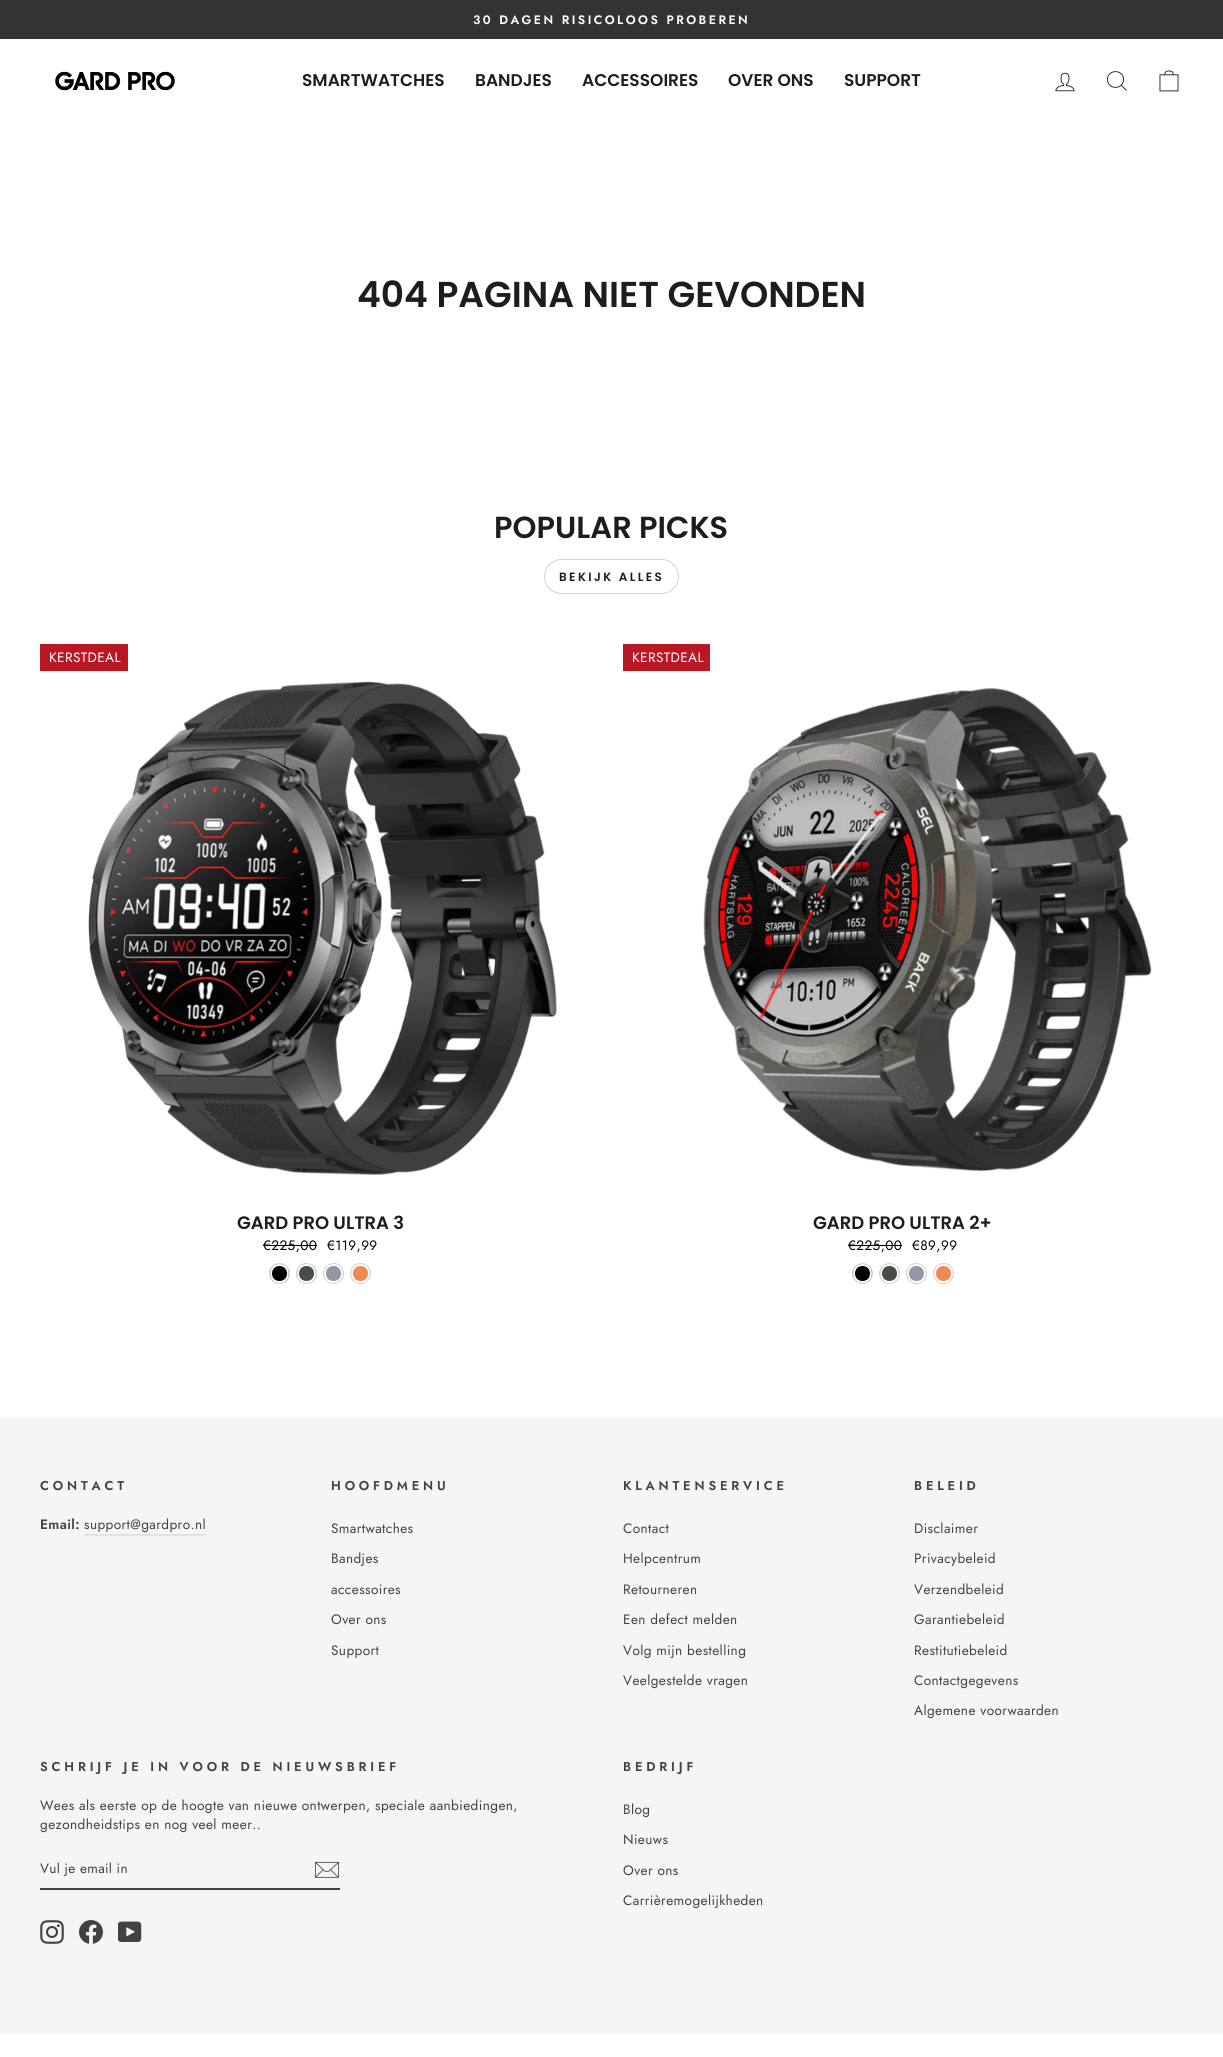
import math
import cairocffi as cairo

surface = cairo.ImageSurface(cairo.FORMAT_RGB24, 1223, 2057)
cr = cairo.Context(surface)
options = cairo.FontOptions()
options.set_hint_metrics(cairo.HINT_METRICS_OFF)
options.set_hint_style(cairo.HINT_STYLE_NONE)
cr.set_font_options(options)
cr.set_miter_limit(4)


def use_color(code):
    cr.set_source_rgb(*(v / 255 for v in bytes.fromhex(code[-6:])))


def spaced_text(x, y, s, letter, word):
    cr.move_to(x, y)
    for ch in s:
        cr.show_text(ch)
        cr.rel_move_to(letter + word * (ch == ' '), 0)


def round_rect(x, y, w, h, r):
    cr.new_sub_path()
    for i, (u, v) in enumerate([(x + w - r, y + h - r), (x + r, y + h - r), (x + r, y + r), (x + w - r, y + r)]):
        cr.arc(u, v, r, i * math.pi / 2, (i + 1) * math.pi / 2)
    cr.close_path()


def picture(path, x, y, w, h):
    cr.save()
    cr.set_source_surface(cairo.ImageSurface.create_from_png(path), x, y)
    cr.rectangle(x, y, w, h)
    cr.fill()
    cr.restore()


use_color("#ffffff")
cr.paint()
use_color("#333336")
cr.rectangle(0, 0, 1223, 39)
cr.fill()
cr.select_font_face("Jost SemiBold")
cr.set_font_size(12.25)
use_color("#ffffff")
spaced_text(473, 24, "30 DAGEN RISICOLOOS PROBEREN", 2.45, 0)
picture("img1.png", 55, 71, 120, 20)
cr.select_font_face("Poppins SemiBold")
cr.set_font_size(17)
use_color("#1d1d1f")
cr.move_to(302, 86)
cr.show_text("SMARTWATCHES")
cr.move_to(475, 86)
cr.show_text("BANDJES")
cr.move_to(582, 86)
cr.show_text("ACCESSOIRES")
cr.move_to(728, 86)
cr.show_text("OVER ONS")
cr.move_to(844, 86)
cr.show_text("SUPPORT")
picture("img2.png", 1055, 72, 20, 20)
cr.new_path()
cr.move_to(1123.5, 79.5)
cr.curve_to(1123.5, 90, 1107.5, 90, 1107.5, 79.5)
cr.curve_to(1107.5, 69, 1123.5, 69, 1123.5, 79.5)
cr.close_path()
cr.move_to(1126.5, 90.5)
cr.line_to(1121.5, 85.5)
cr.set_line_width(0.9)
cr.stroke()
picture("img3.png", 1159, 70, 20, 22)
cr.set_font_size(36)
cr.move_to(357, 307)
cr.show_text("404 PAGINA NIET GEVONDEN")
cr.set_font_size(30.5)
cr.move_to(494, 538)
cr.show_text("POPULAR PICKS")
round_rect(544.5, 559.5, 134, 34, 17)
use_color("#d2d2d7")
cr.set_line_width(1)
cr.stroke()
cr.set_font_size(12)
use_color("#1d1d1f")
spaced_text(559, 581, "BEKIJK ALLES", 2.4, 0)
use_color("#b81724")
cr.rectangle(40, 644, 88, 27)
cr.fill()
cr.select_font_face("Jost")
cr.set_font_size(13.6)
use_color("#ffffff")
spaced_text(49, 662, "KERSTDEAL", 0.4, 0)
picture("img4.png", 88, 681, 470, 494)
cr.select_font_face("Poppins SemiBold")
cr.set_font_size(18)
use_color("#1d1d1f")
cr.move_to(237, 1229)
cr.show_text("GARD PRO ULTRA 3")
cr.select_font_face("Jost")
cr.set_font_size(13.6)
use_color("#000000")
spaced_text(263, 1250, "€225,00", 0.4, 0)
cr.rectangle(263, 1245, 54, 1)
cr.fill()
spaced_text(327, 1250, "€119,99", 0.4, 0)
cr.new_path()
cr.arc(279.5, 1273.5, 10, 0, 2 * math.pi)
use_color("#d2d2d7")
cr.stroke()
picture("img5.png", 270, 1264, 19, 19)
cr.arc(306.5, 1273.5, 10, 0, 2 * math.pi)
cr.stroke()
picture("img6.png", 297, 1264, 19, 19)
use_color("#ffffff")
cr.set_fill_rule(cairo.FILL_RULE_EVEN_ODD)
cr.new_path()
cr.move_to(279.5, 1264)
cr.curve_to(267, 1264, 267, 1283, 279.5, 1283)
cr.curve_to(292, 1283, 292, 1264, 279.5, 1264)
cr.close_path()
cr.move_to(279.5, 1266)
cr.curve_to(269.5, 1266, 269.5, 1281, 279.5, 1281)
cr.curve_to(289.5, 1281, 289.5, 1266, 279.5, 1266)
cr.close_path()
cr.move_to(306.5, 1264)
cr.curve_to(294, 1264, 294, 1283, 306.5, 1283)
cr.curve_to(319, 1283, 319, 1264, 306.5, 1264)
cr.close_path()
cr.move_to(306.5, 1266)
cr.curve_to(296.5, 1266, 296.5, 1281, 306.5, 1281)
cr.curve_to(316.5, 1281, 316.5, 1266, 306.5, 1266)
cr.close_path()
cr.fill()
cr.arc(333.5, 1273.5, 10, 0, 2 * math.pi)
use_color("#d2d2d7")
cr.stroke()
picture("img7.png", 324, 1264, 19, 19)
cr.arc(360.5, 1273.5, 10, 0, 2 * math.pi)
cr.stroke()
picture("img8.png", 351, 1264, 19, 19)
use_color("#ffffff")
cr.new_path()
cr.move_to(333.5, 1264)
cr.curve_to(321, 1264, 321, 1283, 333.5, 1283)
cr.curve_to(346, 1283, 346, 1264, 333.5, 1264)
cr.close_path()
cr.move_to(333.5, 1266)
cr.curve_to(323.5, 1266, 323.5, 1281, 333.5, 1281)
cr.curve_to(343.5, 1281, 343.5, 1266, 333.5, 1266)
cr.close_path()
cr.move_to(360.5, 1264)
cr.curve_to(348, 1264, 348, 1283, 360.5, 1283)
cr.curve_to(373, 1283, 373, 1264, 360.5, 1264)
cr.close_path()
cr.move_to(360.5, 1266)
cr.curve_to(350.5, 1266, 350.5, 1281, 360.5, 1281)
cr.curve_to(370.5, 1281, 370.5, 1266, 360.5, 1266)
cr.close_path()
cr.fill()
use_color("#b81724")
cr.rectangle(623, 644, 87, 27)
cr.fill()
use_color("#ffffff")
spaced_text(632, 662, "KERSTDEAL", 0.4, 0)
picture("img9.png", 703, 688, 449, 484)
cr.select_font_face("Poppins SemiBold")
cr.set_font_size(18)
use_color("#1d1d1f")
cr.move_to(813, 1229)
cr.show_text("GARD PRO ULTRA 2+")
cr.select_font_face("Jost")
cr.set_font_size(13.6)
use_color("#000000")
spaced_text(848, 1250, "€225,00", 0.4, 0)
cr.rectangle(848, 1245, 54, 1)
cr.fill()
spaced_text(912, 1250, "€89,99", 0.4, 0)
cr.new_path()
cr.arc(862.5, 1273.5, 10, 0, 2 * math.pi)
use_color("#d2d2d7")
cr.stroke()
picture("img5.png", 853, 1264, 19, 19)
cr.arc(889.5, 1273.5, 10, 0, 2 * math.pi)
cr.stroke()
picture("img6.png", 880, 1264, 19, 19)
use_color("#ffffff")
cr.new_path()
cr.move_to(862.5, 1264)
cr.curve_to(850, 1264, 850, 1283, 862.5, 1283)
cr.curve_to(875, 1283, 875, 1264, 862.5, 1264)
cr.close_path()
cr.move_to(862.5, 1266)
cr.curve_to(852.5, 1266, 852.5, 1281, 862.5, 1281)
cr.curve_to(872.5, 1281, 872.5, 1266, 862.5, 1266)
cr.close_path()
cr.move_to(889.5, 1264)
cr.curve_to(877, 1264, 877, 1283, 889.5, 1283)
cr.curve_to(902, 1283, 902, 1264, 889.5, 1264)
cr.close_path()
cr.move_to(889.5, 1266)
cr.curve_to(879.5, 1266, 879.5, 1281, 889.5, 1281)
cr.curve_to(899.5, 1281, 899.5, 1266, 889.5, 1266)
cr.close_path()
cr.fill()
cr.arc(916.5, 1273.5, 10, 0, 2 * math.pi)
use_color("#d2d2d7")
cr.stroke()
picture("img7.png", 907, 1264, 19, 19)
cr.arc(943.5, 1273.5, 10, 0, 2 * math.pi)
cr.stroke()
picture("img8.png", 934, 1264, 19, 19)
use_color("#ffffff")
cr.new_path()
cr.move_to(916.5, 1264)
cr.curve_to(904, 1264, 904, 1283, 916.5, 1283)
cr.curve_to(929, 1283, 929, 1264, 916.5, 1264)
cr.close_path()
cr.move_to(916.5, 1266)
cr.curve_to(906.5, 1266, 906.5, 1281, 916.5, 1281)
cr.curve_to(926.5, 1281, 926.5, 1266, 916.5, 1266)
cr.close_path()
cr.move_to(943.5, 1264)
cr.curve_to(931, 1264, 931, 1283, 943.5, 1283)
cr.curve_to(956, 1283, 956, 1264, 943.5, 1264)
cr.close_path()
cr.move_to(943.5, 1266)
cr.curve_to(933.5, 1266, 933.5, 1281, 943.5, 1281)
cr.curve_to(953.5, 1281, 953.5, 1266, 943.5, 1266)
cr.close_path()
cr.fill()
use_color("#f5f5f7")
cr.rectangle(0, 1417, 1223, 617)
cr.fill()
cr.select_font_face("Jost SemiBold")
cr.set_font_size(12.8)
use_color("#424245")
spaced_text(40, 1490, "CONTACT", 3.85, 0)
cr.set_font_size(13.6)
spaced_text(40, 1529, "Email:", 0.4, 0)
cr.select_font_face("Jost")
spaced_text(84, 1529, "support@gardpro.nl", 0.4, 0)
use_color("#e3e3e5")
cr.rectangle(84, 1534, 122, 2)
cr.fill()
cr.select_font_face("Jost SemiBold")
cr.set_font_size(12.8)
use_color("#424245")
spaced_text(331, 1490, "HOOFDMENU", 3.85, 0)
cr.select_font_face("Jost")
cr.set_font_size(13.6)
spaced_text(331, 1533, "Smartwatches", 0.4, 0)
spaced_text(331, 1563, "Bandjes", 0.4, 0)
spaced_text(331, 1594, "accessoires", 0.4, 0)
spaced_text(331, 1624, "Over ons", 0.4, 0)
spaced_text(331, 1655, "Support", 0.4, 0)
cr.select_font_face("Jost SemiBold")
cr.set_font_size(12.8)
spaced_text(623, 1490, "KLANTENSERVICE", 3.85, 0)
cr.select_font_face("Jost")
cr.set_font_size(13.6)
spaced_text(623, 1533, "Contact", 0.4, 0)
spaced_text(623, 1563, "Helpcentrum", 0.4, 0)
spaced_text(623, 1594, "Retourneren", 0.4, 0)
spaced_text(623, 1624, "Een defect melden", 0.4, 0)
spaced_text(623, 1655, "Volg mijn bestelling", 0.4, 0)
spaced_text(623, 1685, "Veelgestelde vragen", 0.4, 0)
cr.select_font_face("Jost SemiBold")
cr.set_font_size(12.8)
spaced_text(914, 1490, "BELEID", 3.85, 0)
cr.select_font_face("Jost")
cr.set_font_size(13.6)
spaced_text(914, 1533, "Disclaimer", 0.4, 0)
spaced_text(914, 1563, "Privacybeleid", 0.4, 0)
spaced_text(914, 1594, "Verzendbeleid", 0.4, 0)
spaced_text(914, 1624, "Garantiebeleid", 0.4, 0)
spaced_text(914, 1655, "Restitutiebeleid", 0.4, 0)
spaced_text(914, 1685, "Contactgegevens", 0.4, 0)
spaced_text(914, 1715, "Algemene voorwaarden", 0.4, 0)
cr.select_font_face("Jost SemiBold")
cr.set_font_size(12.8)
spaced_text(40, 1771, "SCHRIJF JE IN VOOR DE NIEUWSBRIEF", 3.85, 0)
cr.select_font_face("Jost")
cr.set_font_size(13.6)
spaced_text(40, 1810, "Wees als eerste op de hoogte van nieuwe ontwerpen, speciale aanbiedingen,", 0.4, 0)
spaced_text(40, 1829, "gezondheidstips en nog veel meer..", 0.4, 0)
cr.rectangle(40, 1888, 300, 2)
cr.fill()
spaced_text(40, 1873, "Vul je email in", 0.3, 0)
picture("img10.png", 314, 1861, 26, 17)
picture("img11.png", 40, 1920, 24, 24)
picture("img12.png", 79, 1920, 24, 24)
picture("img13.png", 118, 1921, 24, 21)
cr.select_font_face("Jost SemiBold")
cr.set_font_size(12.8)
spaced_text(623, 1771, "BEDRIJF", 3.85, 0)
cr.select_font_face("Jost")
cr.set_font_size(13.6)
spaced_text(623, 1814, "Blog", 0.4, 0)
spaced_text(623, 1844, "Nieuws", 0.4, 0)
spaced_text(623, 1875, "Over ons", 0.4, 0)
spaced_text(623, 1905, "Carrièremogelijkheden", 0.4, 0)
surface.write_to_png("result.png")
